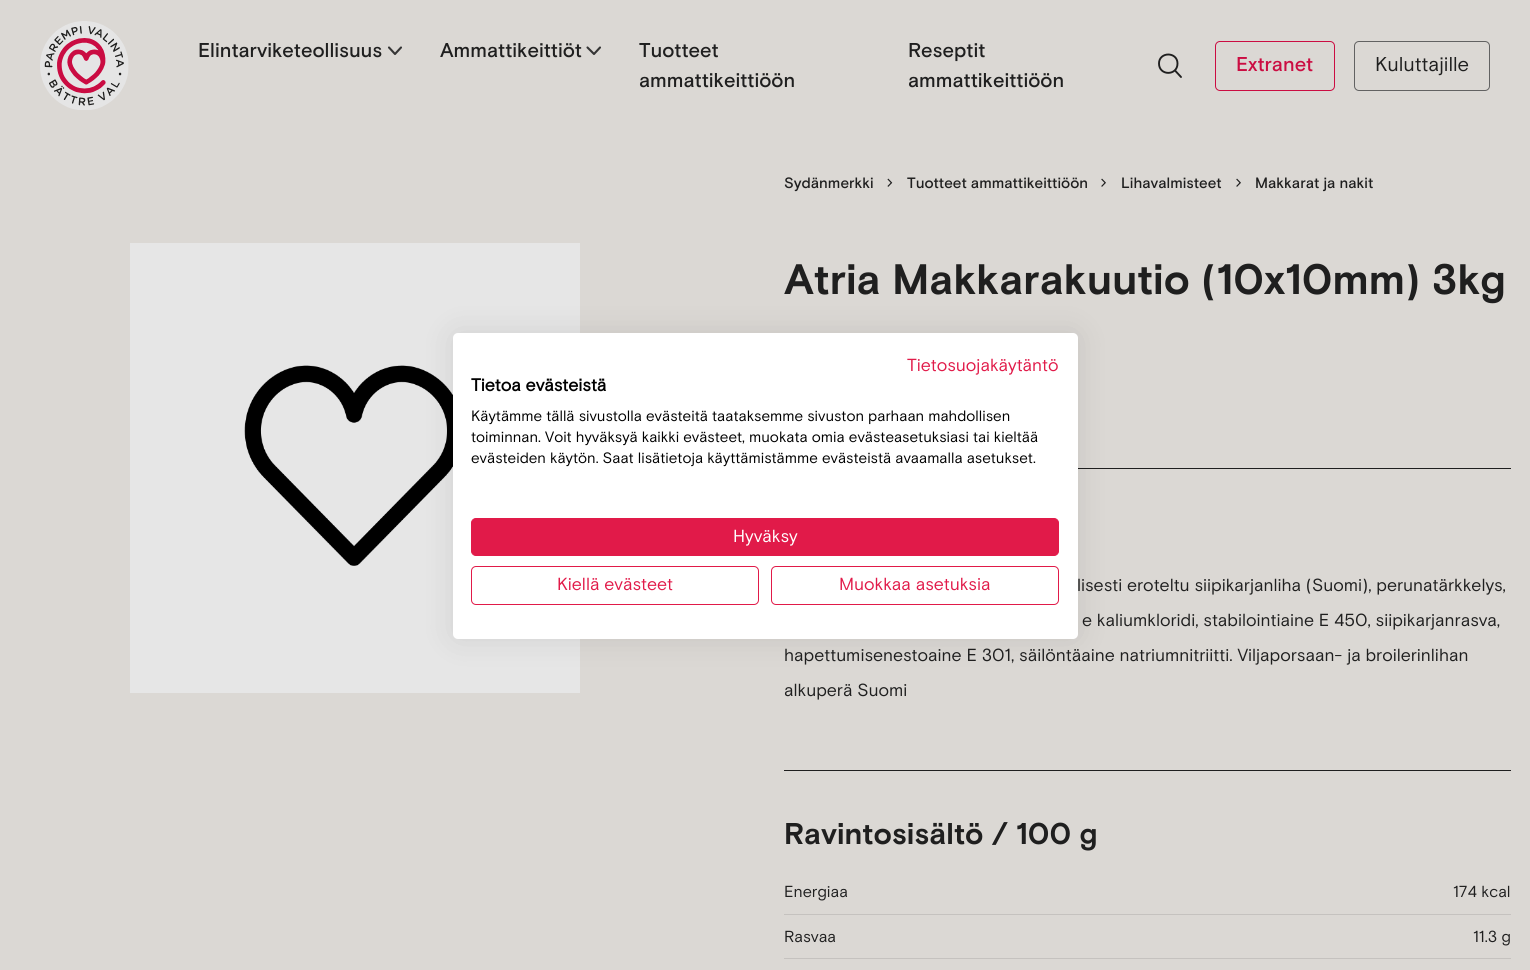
import math
import cairocffi as cairo

surface = cairo.ImageSurface(cairo.FORMAT_RGB24, 1530, 970)
cr = cairo.Context(surface)
options = cairo.FontOptions()
options.set_hint_metrics(cairo.HINT_METRICS_OFF)
options.set_hint_style(cairo.HINT_STYLE_NONE)
cr.set_font_options(options)
cr.set_miter_limit(4)


def use_color(code):
    cr.set_source_rgb(*(v / 255 for v in bytes.fromhex(code[-6:])))


def round_rect(x, y, w, h, r):
    cr.new_sub_path()
    for i, (u, v) in enumerate([(x + w - r, y + h - r), (x + r, y + h - r), (x + r, y + r), (x + w - r, y + r)]):
        cr.arc(u, v, r, i * math.pi / 2, (i + 1) * math.pi / 2)
    cr.close_path()


def shadow(x, y, w, h, r, blur, alpha):
    cr.push_group_with_content(cairo.CONTENT_ALPHA)
    cr.set_operator(cairo.OPERATOR_SOURCE)
    for i in range(15, -16, -2):
        e = blur * i / 6
        if min(w, h) + 2 * e > 0:
            cr.set_source_rgba(0, 0, 0, alpha * math.erfc((i - 1) / 8.5) / 2)
            round_rect(x - e, y - e, w + 2 * e, h + 2 * e, max(0, min(r + e + blur * .6, min(w, h) / 2 + e)))
            cr.fill()
    cr.mask(cr.pop_group())


def picture(path, x, y, w, h):
    cr.save()
    cr.set_source_surface(cairo.ImageSurface.create_from_png(path), x, y)
    cr.rectangle(x, y, w, h)
    cr.fill()
    cr.restore()


use_color("#dbd8d4")
cr.paint()
picture("img1.png", 40, 21, 89, 89)
cr.select_font_face("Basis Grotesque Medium")
cr.set_font_size(20)
use_color("#1f1f1f")
cr.move_to(198, 57)
cr.show_text("Elintarviketeollisuus")
cr.new_path()
cr.move_to(389, 47.5)
cr.line_to(395, 54)
cr.line_to(401, 47.5)
use_color("#353535")
cr.set_line_width(2.1)
cr.set_line_cap(cairo.LINE_CAP_ROUND)
cr.set_line_join(cairo.LINE_JOIN_ROUND)
cr.stroke()
use_color("#1f1f1f")
cr.move_to(440, 57)
cr.show_text("Ammattikeittiöt")
cr.new_path()
cr.move_to(587.5, 47.5)
cr.line_to(594, 54)
cr.line_to(600, 47.5)
use_color("#353535")
cr.stroke()
use_color("#1f1f1f")
cr.move_to(639, 57)
cr.show_text("Tuotteet")
cr.move_to(639, 87)
cr.show_text("ammattikeittiöön")
cr.move_to(908, 57)
cr.show_text("Reseptit")
cr.move_to(908, 87)
cr.show_text("ammattikeittiöön")
cr.new_path()
cr.move_to(1175, 70.5)
cr.line_to(1181, 77)
cr.move_to(1177.5, 63.5)
cr.curve_to(1177.5, 76, 1159, 76, 1159, 63.5)
cr.curve_to(1159, 51.5, 1177.5, 51.5, 1177.5, 63.5)
cr.close_path()
cr.set_line_width(1.9)
cr.stroke()
round_rect(1215.5, 41.5, 119, 49, 4.5)
use_color("#cb0d42")
cr.set_line_width(1)
cr.set_line_cap(cairo.LINE_CAP_BUTT)
cr.set_line_join(cairo.LINE_JOIN_MITER)
cr.stroke()
cr.move_to(1236, 71)
cr.show_text("Extranet")
round_rect(1354.5, 41.5, 135, 49, 4.5)
use_color("#626262")
cr.stroke()
cr.select_font_face("Basis Grotesque")
use_color("#1f1f1f")
cr.move_to(1375, 71)
cr.show_text("Kuluttajille")
use_color("#e6e6e6")
cr.rectangle(130, 243, 450, 450)
cr.fill()
picture("img2.png", 244, 365, 209, 201)
cr.select_font_face("Basis Grotesque Medium")
cr.set_font_size(15)
use_color("#1f1f1f")
cr.move_to(784, 188)
cr.show_text("Sydänmerkki")
picture("img3.png", 887, 178, 6, 9)
cr.move_to(907, 188)
cr.show_text("Tuotteet ammattikeittiöön")
picture("img4.png", 1101, 178, 5, 9)
cr.move_to(1121, 188)
cr.show_text("Lihavalmisteet")
picture("img4.png", 1236, 178, 5, 9)
cr.move_to(1255, 188)
cr.show_text("Makkarat ja nakit")
cr.select_font_face("Basis Grotesque", cairo.FONT_SLANT_NORMAL, cairo.FONT_WEIGHT_BOLD)
cr.set_font_size(42.5)
cr.move_to(784, 294)
cr.show_text("Atria Makkarakuutio (10x10mm) 3kg")
cr.rectangle(1078, 468, 433, 1)
cr.fill()
cr.select_font_face("Basis Grotesque")
cr.set_font_size(17.5)
cr.move_to(1077, 591)
cr.show_text("lisesti eroteltu siipikarjanliha (Suomi), perunatärkkelys,")
cr.move_to(1082, 626)
cr.show_text("e kaliumkloridi, stabilointiaine E 450, siipikarjanrasva,")
cr.move_to(784, 661)
cr.show_text("hapettumisenestoaine E 301, säilöntäaine natriumnitriitti. Viljaporsaan- ja broilerinlihan")
cr.move_to(784, 696)
cr.show_text("alkuperä Suomi")
cr.rectangle(784, 770, 727, 1)
cr.fill()
cr.select_font_face("Basis Grotesque", cairo.FONT_SLANT_NORMAL, cairo.FONT_WEIGHT_BOLD)
cr.set_font_size(30)
cr.move_to(784, 844)
cr.show_text("Ravintosisältö / 100 g")
use_color("#c5c2bf")
cr.rectangle(784, 914, 727, 1)
cr.fill()
cr.select_font_face("Basis Grotesque")
cr.set_font_size(16)
use_color("#1f1f1f")
cr.move_to(784, 897)
cr.show_text("Energiaa")
cr.move_to(1453, 897)
cr.show_text("174 kcal")
use_color("#c5c2bf")
cr.rectangle(784, 958, 727, 1)
cr.fill()
use_color("#1f1f1f")
cr.move_to(784, 942)
cr.show_text("Rasvaa")
cr.move_to(1473, 942)
cr.show_text("11.3 g")
use_color("#000000")
shadow(453, 333, 625, 306, 5, 15, 0.1)
use_color("#ffffff")
round_rect(453, 333, 625, 306, 5)
cr.fill()
cr.set_font_size(17.5)
use_color("#e11a49")
cr.move_to(907, 371)
cr.show_text("Tietosuojakäytäntö")
cr.select_font_face("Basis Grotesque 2", cairo.FONT_SLANT_NORMAL, cairo.FONT_WEIGHT_BOLD)
use_color("#000000")
cr.move_to(471, 391)
cr.show_text("Tietoa evästeistä")
cr.select_font_face("Basis Grotesque")
cr.set_font_size(15)
cr.move_to(471, 421)
cr.show_text("Käytämme tällä sivustolla evästeitä taataksemme sivuston parhaan mahdollisen")
cr.move_to(471, 442)
cr.show_text("toiminnan. Voit hyväksyä kaikki evästeet, muokata omia evästeasetuksiasi tai kieltää")
cr.move_to(471, 463)
cr.show_text("evästeiden käytön. Saat lisätietoja käyttämistämme evästeistä avaamalla asetukset.")
use_color("#e11a49")
round_rect(471.5, 518.5, 587, 37, 4.5)
cr.fill_preserve()
cr.stroke()
cr.set_font_size(17.5)
use_color("#ffffff")
cr.move_to(733, 542)
cr.show_text("Hyväksy")
round_rect(471.5, 566.5, 287, 38, 4.5)
use_color("#e11a49")
cr.stroke()
cr.move_to(557, 590)
cr.show_text("Kiellä evästeet")
round_rect(771.5, 566.5, 287, 38, 4.5)
cr.stroke()
cr.move_to(839, 590)
cr.show_text("Muokkaa asetuksia")
surface.write_to_png("result.png")
